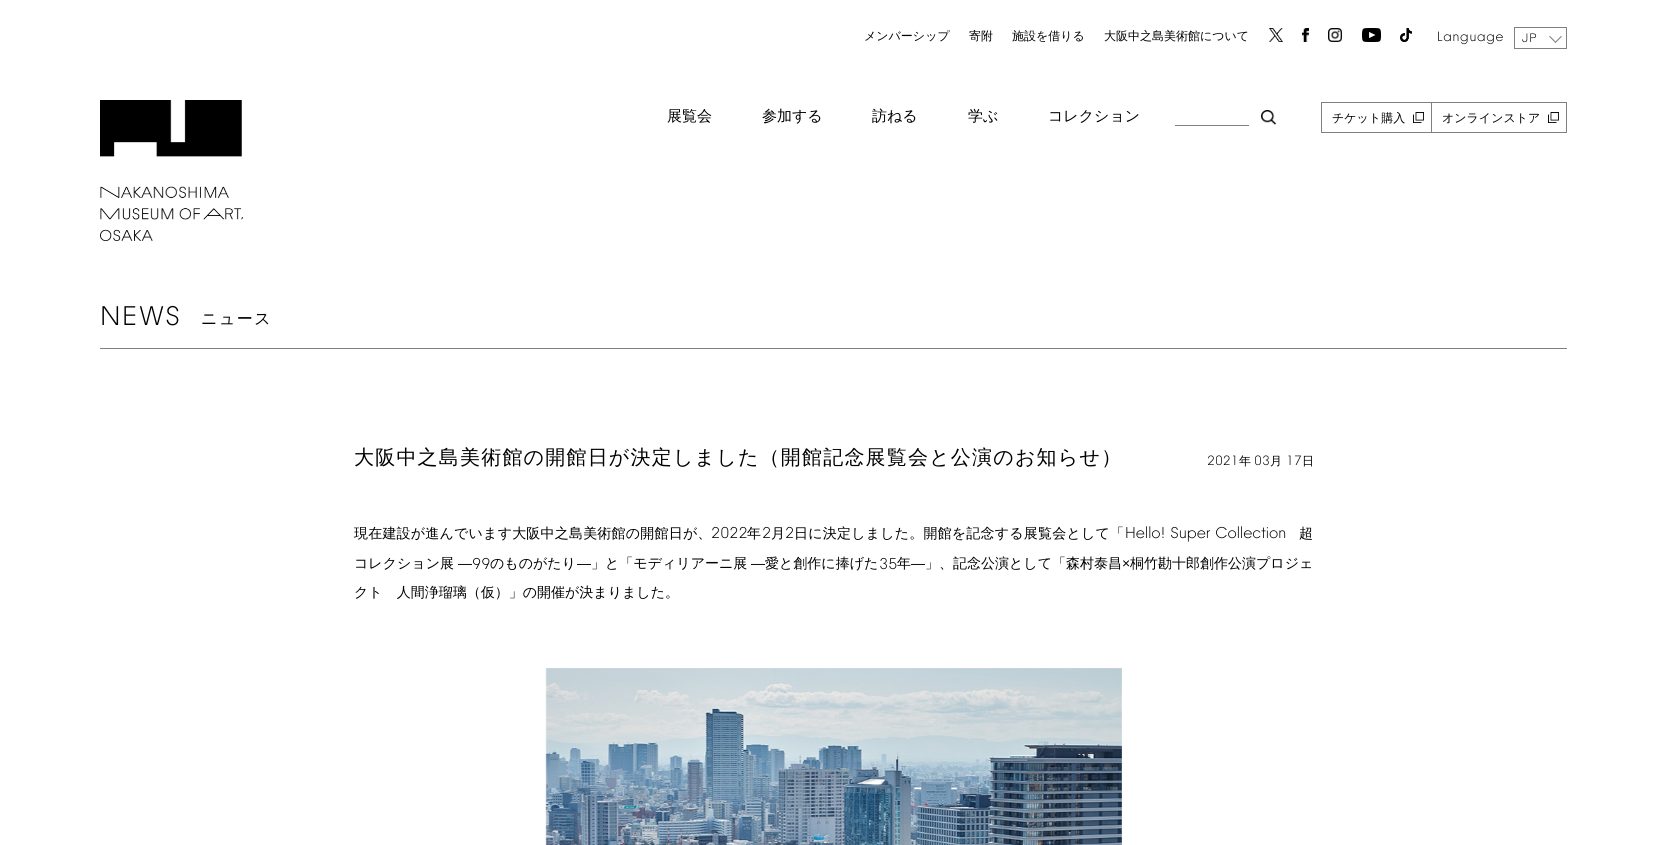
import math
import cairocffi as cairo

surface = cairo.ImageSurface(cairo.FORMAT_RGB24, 1667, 845)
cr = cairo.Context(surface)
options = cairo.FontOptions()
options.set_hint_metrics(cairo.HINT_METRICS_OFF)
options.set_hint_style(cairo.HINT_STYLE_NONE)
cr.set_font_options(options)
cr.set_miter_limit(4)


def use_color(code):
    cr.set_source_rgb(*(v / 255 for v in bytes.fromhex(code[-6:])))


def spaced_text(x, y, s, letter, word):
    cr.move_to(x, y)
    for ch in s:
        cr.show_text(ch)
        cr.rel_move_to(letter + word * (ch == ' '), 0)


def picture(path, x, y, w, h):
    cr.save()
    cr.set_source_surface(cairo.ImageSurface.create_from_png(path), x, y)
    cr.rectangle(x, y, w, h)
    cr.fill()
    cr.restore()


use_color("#ffffff")
cr.paint()
cr.select_font_face("WenQuanYi Zen Hei Medium")
cr.set_font_size(12)
use_color("#000000")
cr.move_to(864, 40)
cr.show_text("メンバーシップ")
cr.move_to(969, 40)
cr.show_text("寄附")
cr.move_to(1012, 40)
cr.show_text("施設を借りる")
cr.move_to(1104, 40)
cr.show_text("大阪中之島美術館について")
picture("img1.png", 1269, 28, 14, 14)
picture("img2.png", 1302, 28, 7, 14)
picture("img3.png", 1328, 28, 14, 14)
picture("img4.png", 1362, 28, 19, 14)
picture("img5.png", 1400, 28, 12, 14)
cr.select_font_face("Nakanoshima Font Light")
cr.set_font_size(13.25)
spaced_text(1437, 41, "Language", 0.75, 0)
cr.rectangle(1514.5, 27.5, 52, 21)
use_color("#808080")
cr.set_line_width(1)
cr.stroke()
cr.set_font_size(12)
use_color("#000000")
spaced_text(1522, 42, "JP", 1, 0)
use_color("#808080")
cr.new_path()
cr.move_to(1561, 36)
cr.line_to(1562, 36.5)
cr.line_to(1555.5, 43)
cr.line_to(1555, 42)
cr.close_path()
cr.fill()
cr.new_path()
cr.move_to(1550, 36)
cr.line_to(1556, 42)
cr.line_to(1555.5, 43)
cr.line_to(1549, 36.5)
cr.close_path()
cr.fill()
cr.select_font_face("WenQuanYi Zen Hei Medium")
cr.set_font_size(15)
use_color("#000000")
cr.move_to(667, 121)
cr.show_text("展覧会")
cr.move_to(762, 121)
cr.show_text("参加する")
cr.move_to(872, 121)
cr.show_text("訪ねる")
cr.move_to(968, 121)
cr.show_text("学ぶ")
cr.move_to(1048, 121)
cr.show_text("コレクション")
picture("img6.png", 1261, 110, 15, 15)
use_color("#808080")
cr.rectangle(1175, 125, 74, 1)
cr.fill()
picture("img7.png", 1413, 112, 11, 11)
cr.rectangle(1321.5, 102.5, 110, 30)
cr.stroke()
cr.set_font_size(12)
use_color("#000000")
cr.move_to(1332, 122)
cr.show_text("チケット購入")
picture("img7.png", 1548, 112, 11, 11)
cr.rectangle(1431.5, 102.5, 135, 30)
use_color("#808080")
cr.stroke()
use_color("#000000")
cr.move_to(1442, 122)
cr.show_text("オンラインストア")
picture("img8.png", 100, 100, 143, 141)
use_color("#808080")
cr.rectangle(100, 348, 1467, 1)
cr.fill()
cr.select_font_face("Nakanoshima Font Light")
cr.set_font_size(26.5)
use_color("#000000")
spaced_text(100, 325, "NEWS", 1.5, 0)
cr.select_font_face("WenQuanYi Zen Hei Medium")
cr.set_font_size(16)
spaced_text(201, 324, "ニュース", 1.5, 0)
cr.set_font_size(20)
spaced_text(354, 464, "大阪中之島美術館の開館日が決定しました（開館記念展覧会と公演のお知らせ）", 1.2, 0)
cr.select_font_face("Nakanoshima Font Light")
cr.set_font_size(13.25)
cr.move_to(1207, 465)
cr.show_text("2021")
cr.select_font_face("WenQuanYi Zen Hei Medium")
cr.set_font_size(12)
cr.move_to(1239, 465)
cr.show_text("年")
cr.select_font_face("Nakanoshima Font Light")
cr.set_font_size(13.25)
cr.move_to(1254, 465)
cr.show_text("03")
cr.select_font_face("WenQuanYi Zen Hei Medium")
cr.set_font_size(12)
cr.move_to(1270, 465)
cr.show_text("月")
cr.select_font_face("Nakanoshima Font Light")
cr.set_font_size(13.25)
cr.move_to(1286, 465)
cr.show_text("17")
cr.select_font_face("WenQuanYi Zen Hei Medium")
cr.set_font_size(12)
cr.move_to(1302, 465)
cr.show_text("日")
cr.set_font_size(14)
spaced_text(354, 538, "現在建設が進んでいます大阪中之島美術館の開館日が、", 0.2, 0)
cr.select_font_face("Nakanoshima Font Light")
cr.set_font_size(15.4)
cr.move_to(711, 538)
cr.show_text("2022")
cr.select_font_face("WenQuanYi Zen Hei Medium")
cr.set_font_size(14)
cr.move_to(747, 538)
cr.show_text("年")
cr.select_font_face("Nakanoshima Font Light")
cr.set_font_size(15.4)
cr.move_to(762, 538)
cr.show_text("2")
cr.select_font_face("WenQuanYi Zen Hei Medium")
cr.set_font_size(14)
cr.move_to(771, 538)
cr.show_text("月")
cr.select_font_face("Nakanoshima Font Light")
cr.set_font_size(15.4)
cr.move_to(785, 538)
cr.show_text("2")
cr.select_font_face("WenQuanYi Zen Hei Medium")
cr.set_font_size(14)
spaced_text(794, 538, "日に決定しました。開館を記念する展覧会として「", 0.2, 0)
cr.select_font_face("Nakanoshima Font Light")
cr.set_font_size(15.4)
cr.move_to(1125, 538)
cr.show_text("Hello! Super Collection")
cr.select_font_face("WenQuanYi Zen Hei Medium")
cr.set_font_size(14)
cr.move_to(1299, 538)
cr.show_text("超")
cr.move_to(354, 568)
cr.show_text("コレクション展")
cr.select_font_face("Liberation Sans")
cr.move_to(458, 568)
cr.show_text("―")
cr.select_font_face("Nakanoshima Font Light")
cr.set_font_size(15.4)
cr.move_to(472, 569)
cr.show_text("99")
cr.select_font_face("WenQuanYi Zen Hei Medium")
cr.set_font_size(14)
cr.move_to(490, 568)
cr.show_text("のものがたり")
cr.select_font_face("Liberation Sans")
cr.move_to(577, 568)
cr.show_text("―")
cr.select_font_face("WenQuanYi Zen Hei Medium")
cr.move_to(591, 568)
cr.show_text("」と「モディリアーニ展")
cr.select_font_face("Liberation Sans")
cr.move_to(751, 568)
cr.show_text("―")
cr.select_font_face("WenQuanYi Zen Hei Medium")
cr.move_to(765, 568)
cr.show_text("愛と創作に捧げた")
cr.select_font_face("Nakanoshima Font Light")
cr.set_font_size(15.4)
cr.move_to(879, 569)
cr.show_text("35")
cr.select_font_face("WenQuanYi Zen Hei Medium")
cr.set_font_size(14)
cr.move_to(897, 568)
cr.show_text("年")
cr.select_font_face("Liberation Sans")
cr.move_to(911, 568)
cr.show_text("―")
cr.select_font_face("WenQuanYi Zen Hei Medium")
cr.move_to(925, 568)
cr.show_text("」、記念公演として「森村泰昌")
cr.select_font_face("Liberation Sans")
cr.move_to(1122, 568)
cr.show_text("×")
cr.select_font_face("WenQuanYi Zen Hei Medium")
cr.move_to(1130, 568)
cr.show_text("桐竹勘十郎創作公演プロジェ")
cr.move_to(354, 597)
cr.show_text("クト　人間浄瑠璃（仮）」の開催が決まりました。")
picture("img9.png", 545, 668, 577, 177)
surface.write_to_png("result.png")
